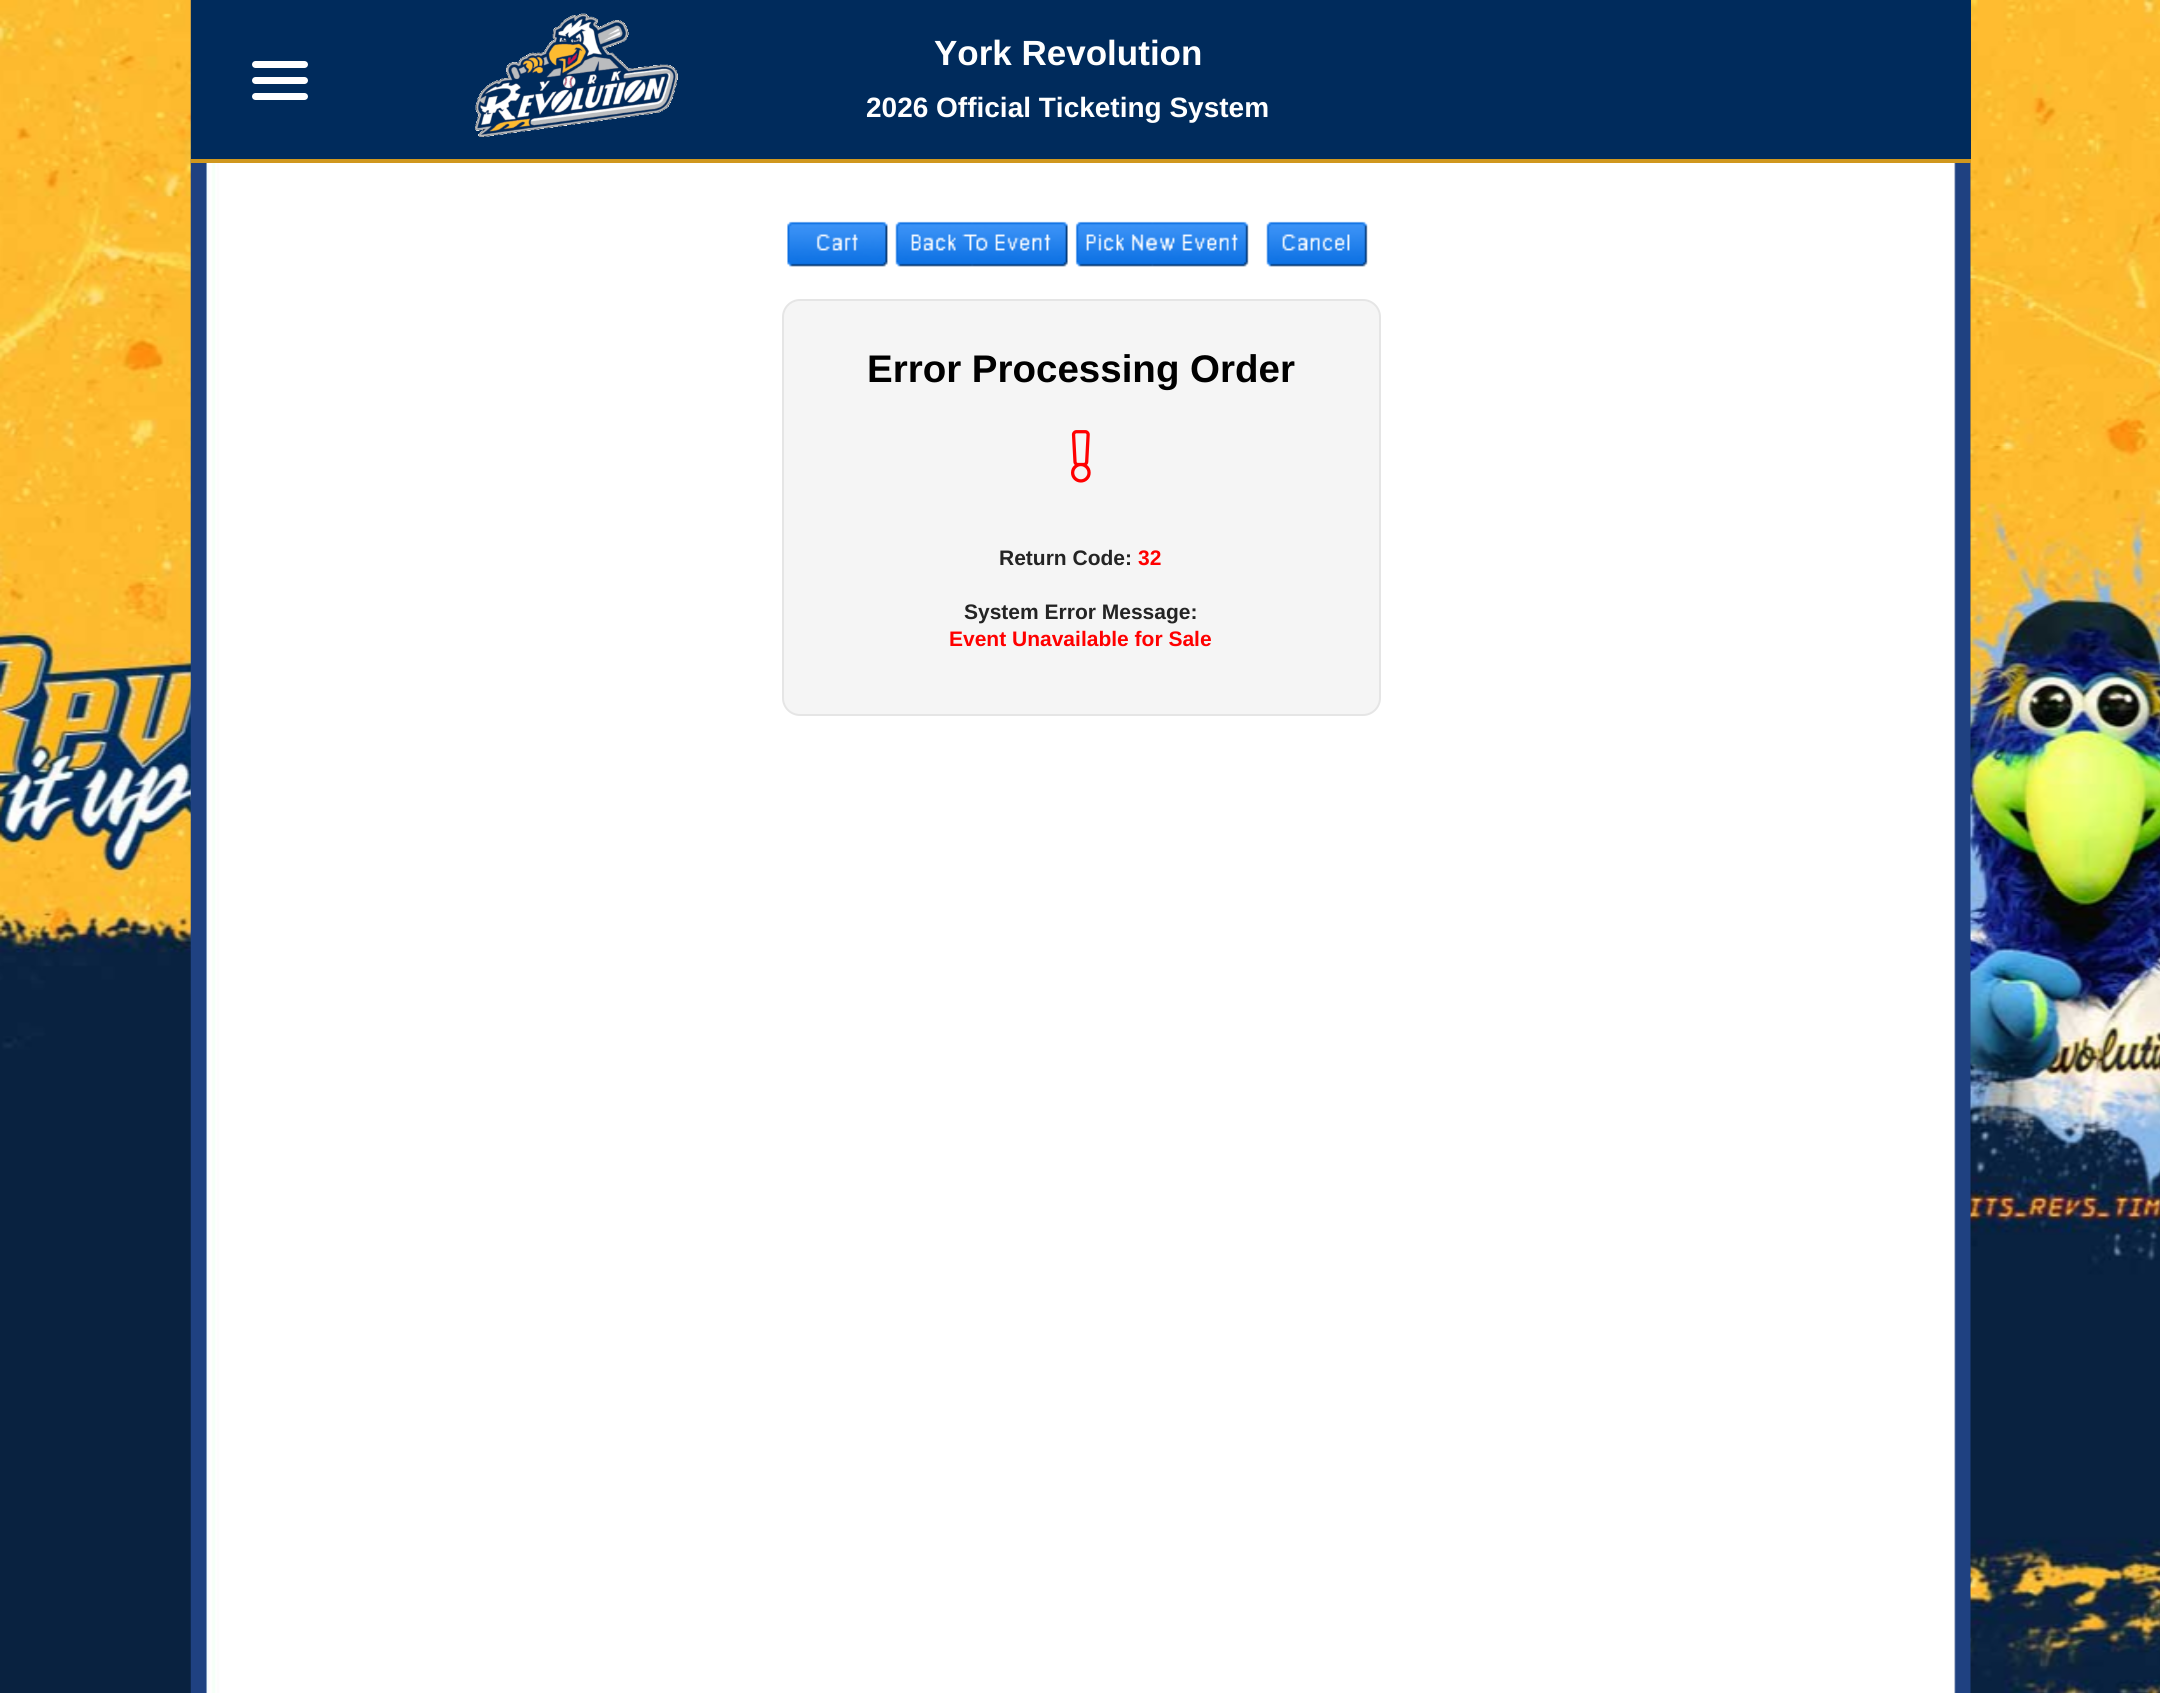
import math
import cairocffi as cairo

surface = cairo.ImageSurface(cairo.FORMAT_RGB24, 2160, 1693)
cr = cairo.Context(surface)
options = cairo.FontOptions()
options.set_hint_metrics(cairo.HINT_METRICS_OFF)
options.set_hint_style(cairo.HINT_STYLE_NONE)
cr.set_font_options(options)
cr.set_miter_limit(4)


def use_color(code):
    cr.set_source_rgb(*(v / 255 for v in bytes.fromhex(code[-6:])))


def round_rect(x, y, w, h, r):
    cr.new_sub_path()
    for i, (u, v) in enumerate([(x + w - r, y + h - r), (x + r, y + h - r), (x + r, y + r), (x + w - r, y + r)]):
        cr.arc(u, v, r, i * math.pi / 2, (i + 1) * math.pi / 2)
    cr.close_path()


def picture(path, x, y, w, h):
    cr.save()
    cr.set_source_surface(cairo.ImageSurface.create_from_png(path), x, y)
    cr.rectangle(x, y, w, h)
    cr.fill()
    cr.restore()


use_color("#ffffff")
cr.paint()
picture("img1.png", 0, 0, 2160, 1693)
picture("img2.png", 190, 0, 1781, 1693)
use_color("#002b5c")
cr.rectangle(191, 0, 1780, 159)
cr.fill()
use_color("#d0971e")
cr.rectangle(191, 159, 1780, 4)
cr.fill()
use_color("#ffffff")
round_rect(252, 61, 56, 7, 3.5)
cr.fill()
round_rect(252, 77, 56, 7, 3.5)
cr.fill()
round_rect(252, 93, 56, 7, 3.5)
cr.fill()
picture("img3.png", 475, 13, 203, 124)
cr.select_font_face("Liberation Sans", cairo.FONT_SLANT_NORMAL, cairo.FONT_WEIGHT_BOLD)
cr.set_font_size(35)
cr.move_to(934, 65)
cr.show_text("York Revolution")
cr.set_font_size(28)
cr.move_to(866, 117)
cr.show_text("2026 Official Ticketing System")
picture("img4.png", 787, 221, 101, 46)
picture("img5.png", 895, 221, 173, 46)
picture("img6.png", 1075, 221, 174, 46)
picture("img7.png", 1266, 221, 102, 46)
use_color("#f5f5f5")
round_rect(783, 300, 597, 415, 17)
cr.fill_preserve()
use_color("#e5e5e5")
cr.stroke()
cr.set_font_size(38.5)
use_color("#000000")
cr.move_to(867, 382)
cr.show_text("Error Processing Order")
picture("img8.png", 1071, 430, 20, 53)
cr.set_font_size(21)
use_color("#242424")
cr.move_to(999, 565)
cr.show_text("Return Code:")
use_color("#ff0000")
cr.move_to(1138, 565)
cr.show_text("32")
use_color("#242424")
cr.move_to(964, 619)
cr.show_text("System Error Message:")
use_color("#ff0000")
cr.move_to(949, 646)
cr.show_text("Event Unavailable for Sale")
surface.write_to_png("result.png")
